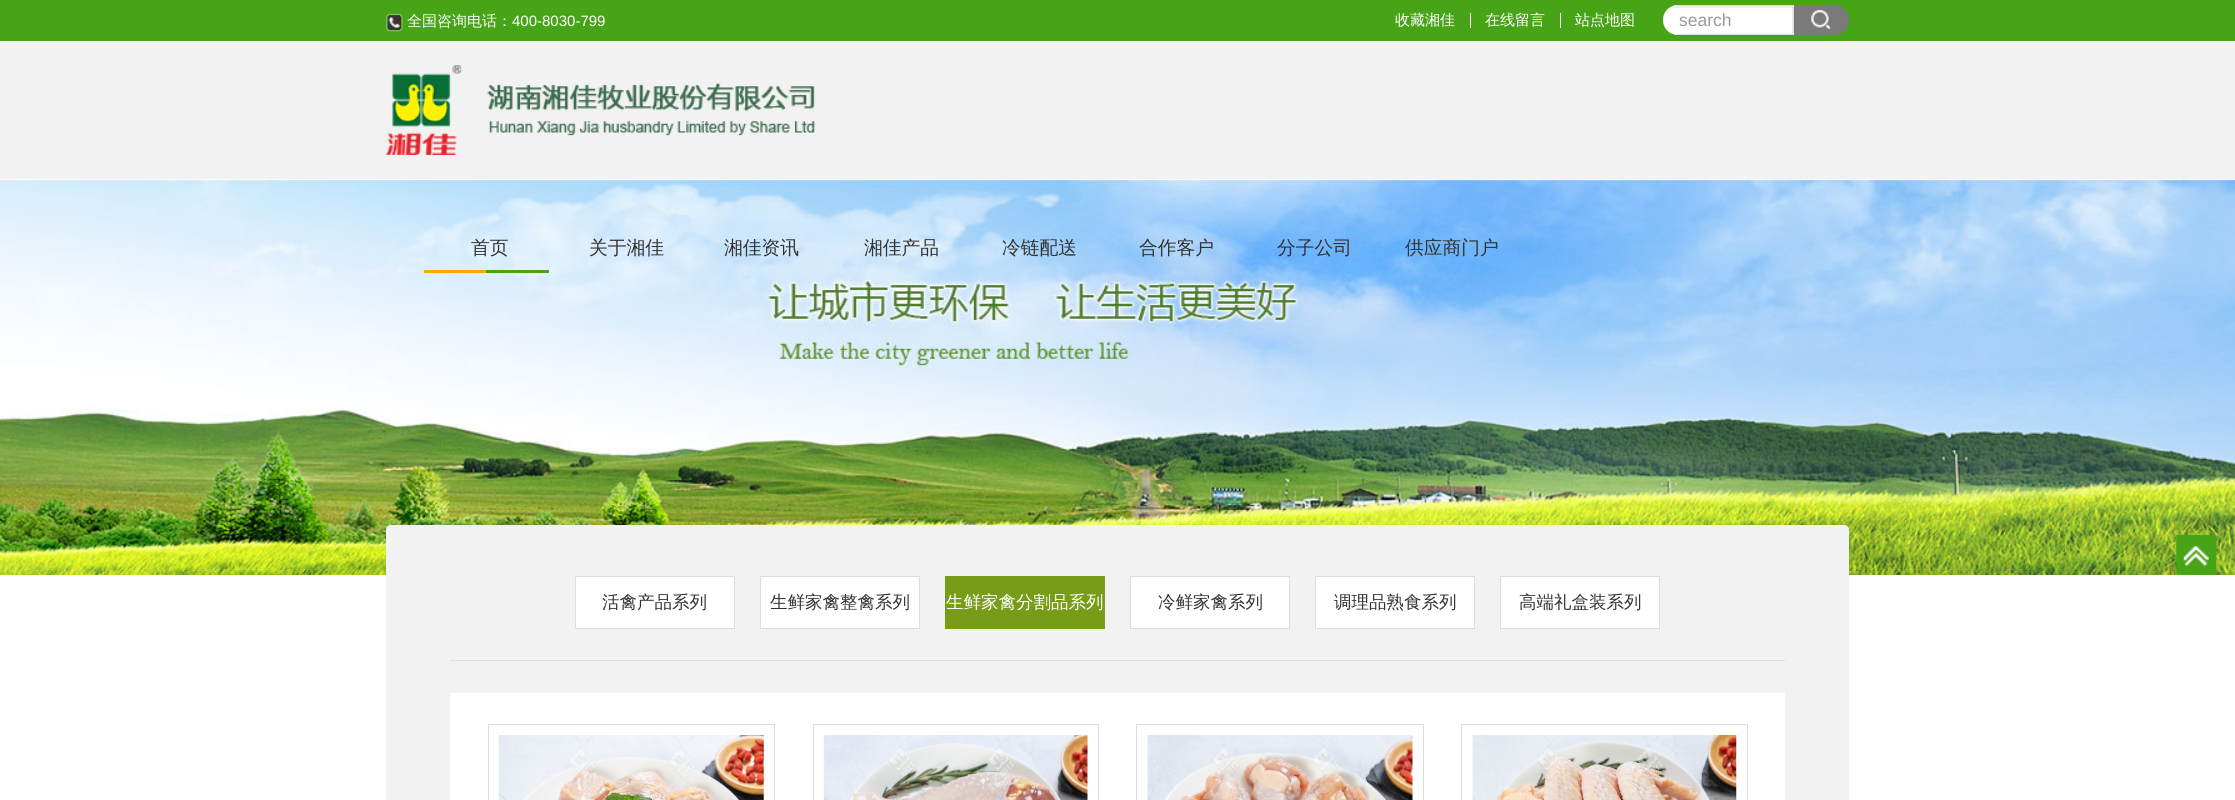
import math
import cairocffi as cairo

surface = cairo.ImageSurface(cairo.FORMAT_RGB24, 2235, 800)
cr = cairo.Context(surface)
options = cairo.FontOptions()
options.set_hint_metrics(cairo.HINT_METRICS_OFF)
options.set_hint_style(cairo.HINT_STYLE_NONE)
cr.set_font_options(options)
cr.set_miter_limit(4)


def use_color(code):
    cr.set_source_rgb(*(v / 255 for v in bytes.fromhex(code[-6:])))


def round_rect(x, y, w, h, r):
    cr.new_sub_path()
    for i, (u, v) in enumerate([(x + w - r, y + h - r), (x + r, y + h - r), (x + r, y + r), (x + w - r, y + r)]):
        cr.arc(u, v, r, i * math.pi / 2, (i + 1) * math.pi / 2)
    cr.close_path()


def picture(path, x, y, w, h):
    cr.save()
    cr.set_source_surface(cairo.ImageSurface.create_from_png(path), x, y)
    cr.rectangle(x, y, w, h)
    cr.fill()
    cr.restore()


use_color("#48a417")
cr.paint()
picture("img1.png", 386, 13, 17, 19)
cr.select_font_face("WenQuanYi Zen Hei Medium")
cr.set_font_size(15)
use_color("#ffffff")
cr.move_to(407, 26)
cr.show_text("全国咨询电话：")
cr.select_font_face("Liberation Sans")
cr.move_to(512, 26)
cr.show_text("400-8030-799")
cr.select_font_face("WenQuanYi Zen Hei Medium")
cr.move_to(1395, 25)
cr.show_text("收藏湘佳")
cr.rectangle(1470, 13, 1, 15)
cr.fill()
cr.move_to(1485, 25)
cr.show_text("在线留言")
cr.rectangle(1560, 13, 1, 15)
cr.fill()
cr.move_to(1575, 25)
cr.show_text("站点地图")
cr.new_path()
cr.move_to(1678, 5)
cr.line_to(1794, 5)
cr.line_to(1794, 35)
cr.line_to(1678, 35)
cr.curve_to(1669.5, 35, 1663, 28.5, 1663, 20)
cr.curve_to(1663, 11.5, 1669.5, 5, 1678, 5)
cr.close_path()
cr.fill()
cr.set_source_rgba(0, 0, 0, 0.07)
cr.new_path()
cr.move_to(1792, 34)
cr.line_to(1793, 34)
cr.line_to(1793, 6)
cr.line_to(1673, 6)
cr.line_to(1669, 8)
cr.line_to(1792, 8)
cr.close_path()
cr.fill()
use_color("#d9dadc")
cr.set_fill_rule(cairo.FILL_RULE_EVEN_ODD)
cr.new_path()
cr.move_to(1678, 5)
cr.line_to(1673, 6)
cr.line_to(1793, 6)
cr.line_to(1793, 34)
cr.line_to(1673, 34)
cr.line_to(1678, 35)
cr.line_to(1794, 35)
cr.line_to(1794, 5)
cr.close_path()
cr.move_to(1664, 25)
cr.curve_to(1663, 22, 1663, 18, 1664, 15)
cr.close_path()
cr.fill()
cr.select_font_face("Liberation Sans")
cr.set_font_size(17.5)
use_color("#999999")
cr.move_to(1679, 26)
cr.show_text("search")
use_color("#7b7a7a")
cr.new_path()
cr.move_to(1794, 5)
cr.line_to(1834, 5)
cr.curve_to(1842.5, 5, 1849, 11.5, 1849, 20)
cr.curve_to(1849, 28.5, 1842.5, 35, 1834, 35)
cr.line_to(1794, 35)
cr.close_path()
cr.fill()
cr.new_path()
cr.move_to(1794, 5)
cr.line_to(1794, 35)
cr.line_to(1834, 35)
cr.line_to(1839, 34)
cr.line_to(1795, 34)
cr.line_to(1795, 6)
cr.line_to(1839, 6)
cr.line_to(1834, 5)
cr.close_path()
cr.move_to(1848, 15)
cr.line_to(1848, 25)
cr.curve_to(1849, 22, 1849, 18, 1848, 15)
cr.close_path()
cr.fill()
picture("img2.png", 1811, 9, 20, 20)
picture("img3.png", 0, 179, 2235, 396)
use_color("#f2f2f2")
cr.rectangle(0, 41, 2235, 138)
cr.fill()
picture("img4.png", 386, 65, 429, 90)
use_color("#fbab00")
cr.rectangle(424, 270, 62, 3)
cr.fill()
cr.select_font_face("WenQuanYi Zen Hei Medium")
cr.set_font_size(18.75)
use_color("#333333")
cr.move_to(471, 254)
cr.show_text("首页")
use_color("#48a417")
cr.rectangle(486, 270, 63, 3)
cr.fill()
use_color("#333333")
cr.move_to(589, 254)
cr.show_text("关于湘佳")
cr.move_to(724, 254)
cr.show_text("湘佳资讯")
cr.move_to(864, 254)
cr.show_text("湘佳产品")
cr.move_to(1002, 254)
cr.show_text("冷链配送")
cr.move_to(1139, 254)
cr.show_text("合作客户")
cr.move_to(1277, 254)
cr.show_text("分子公司")
cr.move_to(1405, 254)
cr.show_text("供应商门户")
picture("img5.png", 2176, 535, 41, 40)
use_color("#ffffff")
cr.rectangle(0, 575, 2235, 225)
cr.fill()
use_color("#f2f2f2")
round_rect(386, 525, 1463, 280, 5)
cr.fill()
use_color("#dddddd")
cr.rectangle(450, 660, 1335, 1)
cr.fill()
use_color("#ffffff")
cr.rectangle(575.5, 576.5, 159, 52)
cr.fill_preserve()
use_color("#dddddd")
cr.set_line_width(1)
cr.stroke()
cr.set_font_size(17.5)
use_color("#333333")
cr.move_to(602, 608)
cr.show_text("活禽产品系列")
use_color("#ffffff")
cr.rectangle(760.5, 576.5, 159, 52)
cr.fill_preserve()
use_color("#dddddd")
cr.stroke()
use_color("#333333")
cr.move_to(770, 608)
cr.show_text("生鲜家禽整禽系列")
use_color("#779c17")
cr.rectangle(945, 576, 160, 53)
cr.fill()
use_color("#ffffff")
cr.move_to(946, 608)
cr.show_text("生鲜家禽分割品系列")
cr.rectangle(1130.5, 576.5, 159, 52)
cr.fill_preserve()
use_color("#dddddd")
cr.stroke()
use_color("#333333")
cr.move_to(1158, 608)
cr.show_text("冷鲜家禽系列")
use_color("#ffffff")
cr.rectangle(1315.5, 576.5, 159, 52)
cr.fill_preserve()
use_color("#dddddd")
cr.stroke()
use_color("#333333")
cr.move_to(1334, 608)
cr.show_text("调理品熟食系列")
use_color("#ffffff")
cr.rectangle(1500.5, 576.5, 159, 52)
cr.fill_preserve()
use_color("#dddddd")
cr.stroke()
use_color("#333333")
cr.move_to(1519, 608)
cr.show_text("高端礼盒装系列")
use_color("#ffffff")
cr.rectangle(450, 693, 1335, 107)
cr.fill()
cr.rectangle(488.5, 724.5, 286, 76)
use_color("#dddddd")
cr.stroke()
picture("img6.png", 498, 735, 266, 65)
cr.rectangle(813.5, 724.5, 285, 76)
cr.stroke()
picture("img7.png", 823, 735, 265, 65)
cr.rectangle(1136.5, 724.5, 287, 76)
cr.stroke()
picture("img8.png", 1147, 735, 266, 65)
cr.rectangle(1461.5, 724.5, 286, 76)
cr.stroke()
picture("img9.png", 1472, 735, 265, 65)
surface.write_to_png("result.png")
